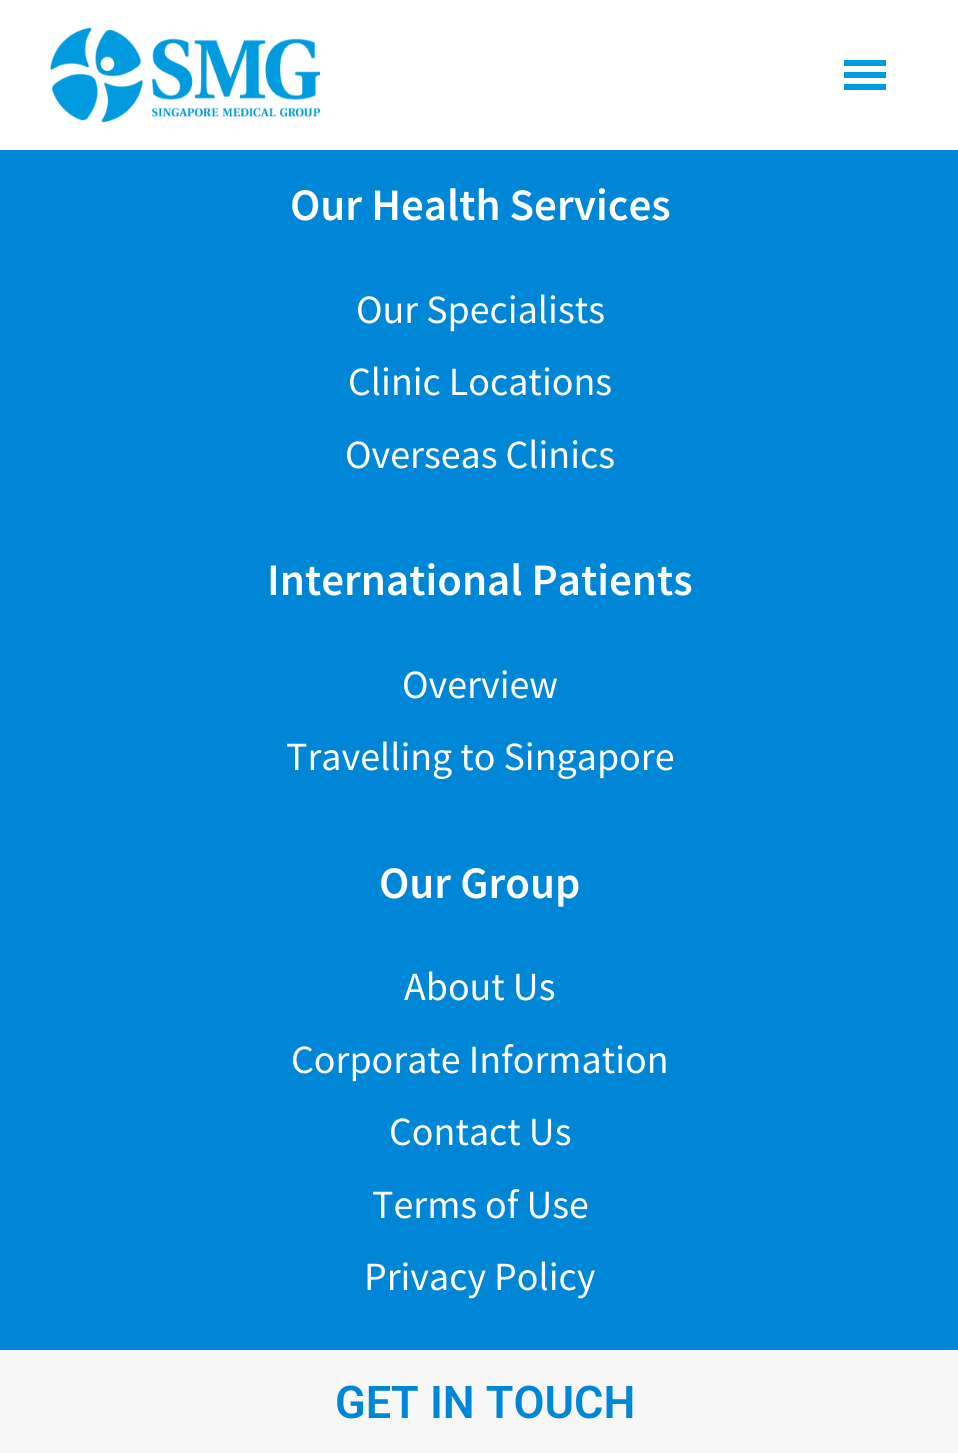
import math
import cairocffi as cairo

surface = cairo.ImageSurface(cairo.FORMAT_RGB24, 958, 1453)
cr = cairo.Context(surface)
options = cairo.FontOptions()
options.set_hint_metrics(cairo.HINT_METRICS_OFF)
options.set_hint_style(cairo.HINT_STYLE_NONE)
cr.set_font_options(options)
cr.set_miter_limit(4)


def use_color(code):
    cr.set_source_rgb(*(v / 255 for v in bytes.fromhex(code[-6:])))


def picture(path, x, y, w, h):
    cr.save()
    cr.set_source_surface(cairo.ImageSurface.create_from_png(path), x, y)
    cr.rectangle(x, y, w, h)
    cr.fill()
    cr.restore()


use_color("#0086d6")
cr.paint()
cr.select_font_face("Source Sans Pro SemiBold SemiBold")
cr.set_font_size(45)
use_color("#ffffff")
cr.move_to(290, 220)
cr.show_text("Our Health Services")
cr.select_font_face("Source Sans Pro")
cr.set_font_size(40)
cr.move_to(356, 323)
cr.show_text("Our Specialists")
cr.move_to(348, 395)
cr.show_text("Clinic Locations")
cr.move_to(345, 468)
cr.show_text("Overseas Clinics")
cr.select_font_face("Source Sans Pro SemiBold SemiBold")
cr.set_font_size(45)
cr.move_to(267, 595)
cr.show_text("International Patients")
cr.select_font_face("Source Sans Pro")
cr.set_font_size(40)
cr.move_to(402, 698)
cr.show_text("Overview")
cr.move_to(286, 770)
cr.show_text("Travelling to Singapore")
cr.select_font_face("Source Sans Pro SemiBold SemiBold")
cr.set_font_size(45)
cr.move_to(379, 898)
cr.show_text("Our Group")
cr.select_font_face("Source Sans Pro")
cr.set_font_size(40)
cr.move_to(404, 1000)
cr.show_text("About Us")
cr.move_to(291, 1073)
cr.show_text("Corporate Information")
cr.move_to(389, 1145)
cr.show_text("Contact Us")
cr.move_to(372, 1218)
cr.show_text("Terms of Use")
cr.move_to(364, 1290)
cr.show_text("Privacy Policy")
cr.rectangle(0, 0, 958, 150)
cr.fill()
picture("img1.png", 50, 27, 270, 96)
use_color("#009bdf")
cr.new_path()
cr.move_to(844, 90)
cr.line_to(886, 90)
cr.line_to(886, 84)
cr.line_to(844, 84)
cr.close_path()
cr.move_to(844, 60)
cr.line_to(844, 66)
cr.line_to(886, 66)
cr.line_to(886, 60)
cr.close_path()
cr.move_to(844, 78)
cr.line_to(886, 78)
cr.line_to(886, 72)
cr.line_to(844, 72)
cr.close_path()
cr.fill()
use_color("#f7f7f7")
cr.rectangle(0, 1350, 958, 103)
cr.fill()
cr.select_font_face("Roboto SemiBold")
cr.set_font_size(45)
use_color("#0086d6")
cr.move_to(335, 1418)
cr.show_text("GET IN TOUCH")
surface.write_to_png("result.png")
